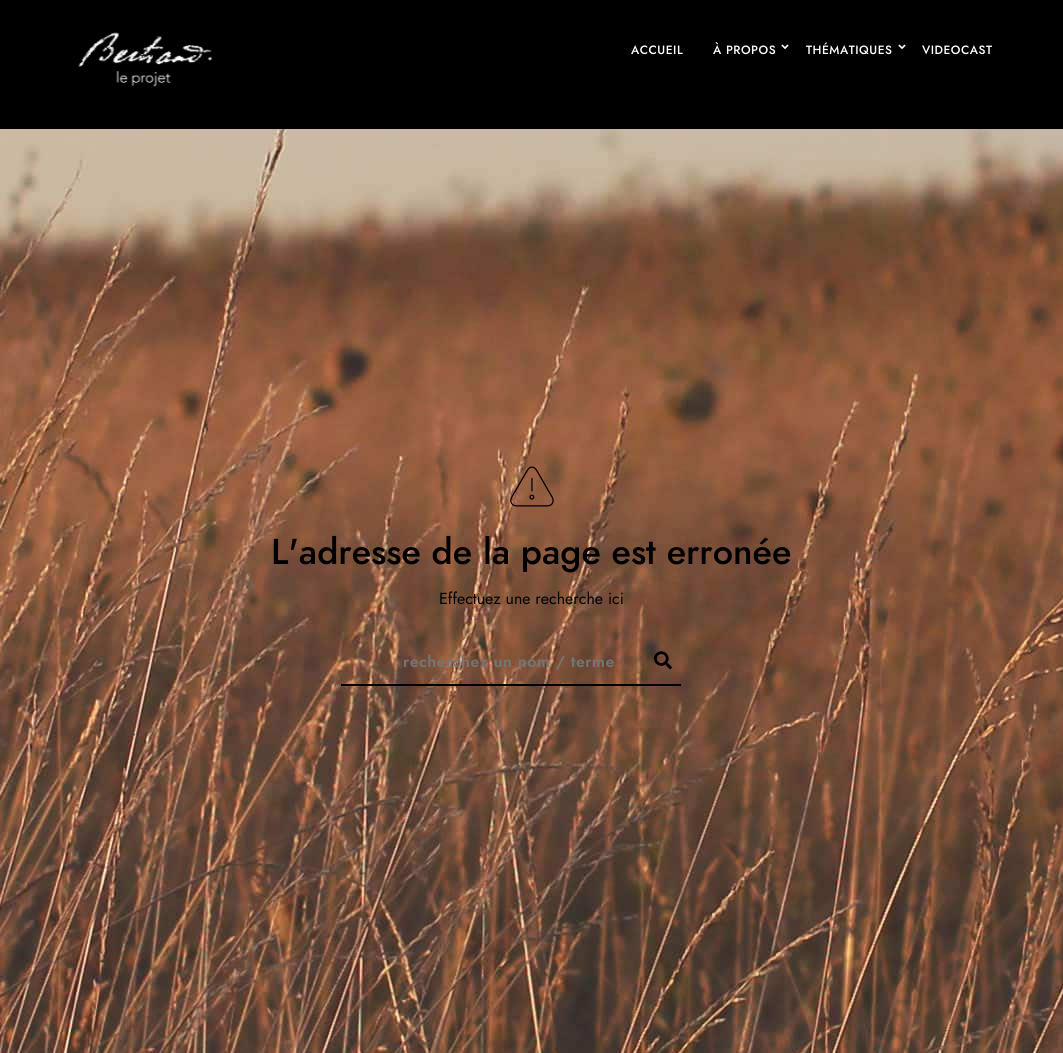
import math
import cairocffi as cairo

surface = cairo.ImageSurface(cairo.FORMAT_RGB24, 1063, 1053)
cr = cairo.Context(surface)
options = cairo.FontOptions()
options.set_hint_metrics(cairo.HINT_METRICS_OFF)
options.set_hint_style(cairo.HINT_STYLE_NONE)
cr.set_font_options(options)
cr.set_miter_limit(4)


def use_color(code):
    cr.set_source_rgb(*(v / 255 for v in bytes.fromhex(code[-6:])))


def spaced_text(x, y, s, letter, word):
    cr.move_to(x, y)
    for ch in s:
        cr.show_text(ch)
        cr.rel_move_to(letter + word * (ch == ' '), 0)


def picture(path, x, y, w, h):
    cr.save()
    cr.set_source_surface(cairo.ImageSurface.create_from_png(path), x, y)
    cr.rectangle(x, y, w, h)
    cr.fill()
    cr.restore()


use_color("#ffffff")
cr.paint()
picture("img1.png", 0, 129, 1063, 924)
use_color("#000000")
cr.rectangle(0, 0, 1063, 129)
cr.fill()
picture("img2.png", 78, 32, 135, 55)
cr.select_font_face("Jost Medium")
cr.set_font_size(12)
use_color("#ffffff")
spaced_text(631, 54, "ACCUEIL", 0.5, 0)
spaced_text(713, 54, "À PROPOS", 0.5, 0)
picture("img3.png", 781, 44, 8, 6)
spaced_text(806, 54, "THÉMATIQUES", 0.5, 0)
picture("img3.png", 898, 44, 8, 6)
spaced_text(922, 54, "VIDEOCAST", 0.5, 0)
picture("img4.png", 510, 466, 44, 41)
cr.set_font_size(36)
use_color("#000000")
cr.move_to(271, 564)
cr.show_text("L'adresse de la page est erronée")
cr.select_font_face("Jost")
cr.set_font_size(16)
cr.move_to(439, 604)
cr.show_text("Effectuez une recherche ici")
cr.rectangle(341, 684, 340, 2)
cr.fill()
cr.select_font_face("Jost SemiBold")
use_color("#757575")
spaced_text(403, 667, "recherchez un nom / terme", 0.5, 0)
picture("img5.png", 654, 651, 18, 19)
surface.write_to_png("result.png")
